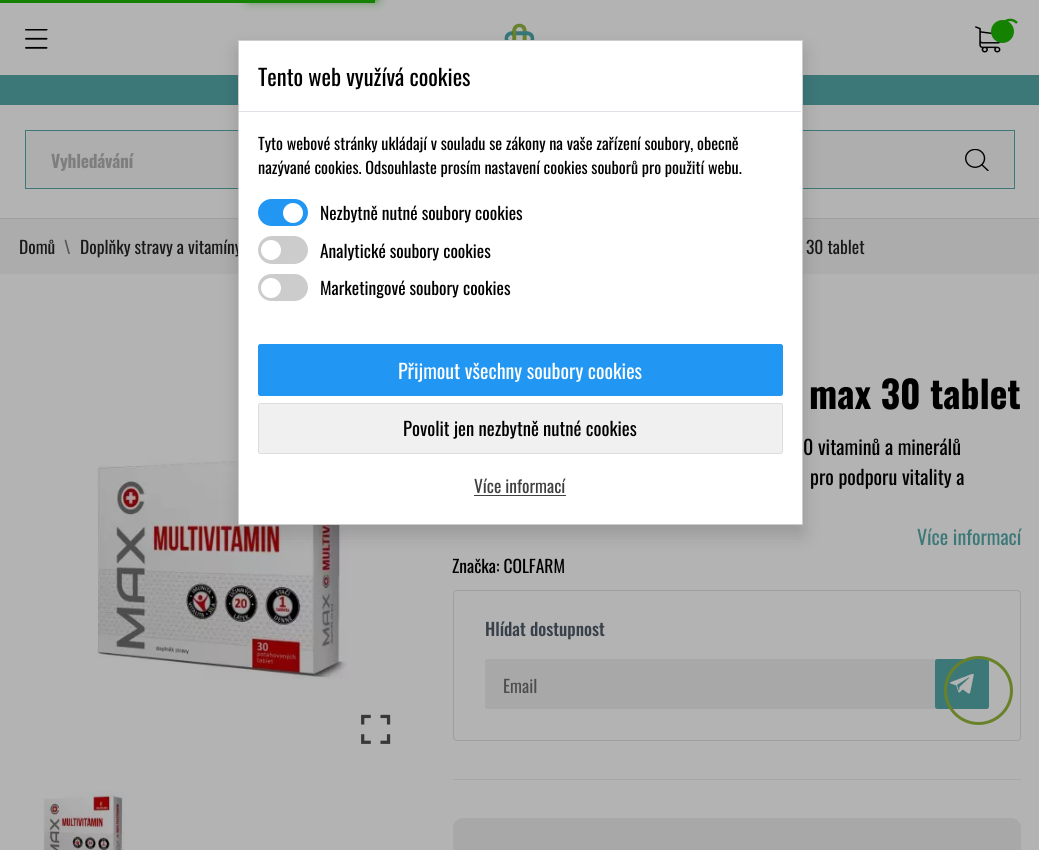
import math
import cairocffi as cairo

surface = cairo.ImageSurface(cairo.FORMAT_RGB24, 1039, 850)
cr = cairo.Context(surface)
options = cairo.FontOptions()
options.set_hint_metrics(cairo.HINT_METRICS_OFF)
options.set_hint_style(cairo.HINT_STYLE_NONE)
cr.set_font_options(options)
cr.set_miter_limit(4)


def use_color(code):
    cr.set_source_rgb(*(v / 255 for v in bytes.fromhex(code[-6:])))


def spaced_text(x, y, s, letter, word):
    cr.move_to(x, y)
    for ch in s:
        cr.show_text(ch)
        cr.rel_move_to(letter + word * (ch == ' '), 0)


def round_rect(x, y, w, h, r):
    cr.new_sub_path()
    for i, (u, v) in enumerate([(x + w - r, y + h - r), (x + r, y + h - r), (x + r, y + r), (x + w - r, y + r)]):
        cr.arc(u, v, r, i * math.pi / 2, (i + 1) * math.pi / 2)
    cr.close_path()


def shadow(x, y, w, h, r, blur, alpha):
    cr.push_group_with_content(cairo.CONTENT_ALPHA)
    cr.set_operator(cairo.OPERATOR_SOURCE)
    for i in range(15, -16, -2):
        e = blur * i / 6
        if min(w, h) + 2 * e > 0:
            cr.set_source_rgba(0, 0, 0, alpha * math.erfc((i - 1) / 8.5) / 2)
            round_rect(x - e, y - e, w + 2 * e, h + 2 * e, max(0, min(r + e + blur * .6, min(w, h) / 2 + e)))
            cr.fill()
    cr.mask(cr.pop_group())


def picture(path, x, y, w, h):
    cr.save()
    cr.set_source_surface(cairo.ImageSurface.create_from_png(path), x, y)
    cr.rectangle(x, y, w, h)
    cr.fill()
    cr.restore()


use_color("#b3b3b3")
cr.paint()
use_color("#148200")
cr.rectangle(0, 0, 375, 3)
cr.fill()
use_color("#148200")
shadow(250, -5, 125, 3, 0, 3, 1)
shadow(250, -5, 125, 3, 0, 6.5, 1)
picture("img3.png", 975, 26, 26, 27)
use_color("#148200")
cr.arc(1002.5, 31.5, 11.5, 0, 2 * math.pi)
cr.fill()
cr.new_path()
cr.move_to(1003, 37)
cr.curve_to(993.5, 28, 1008, 13.5, 1017, 23)
cr.set_line_width(2.5)
cr.stroke()
use_color("#a0a0a0")
cr.rectangle(0, 218, 1039, 1)
cr.fill()
picture("img2.png", 504, 23, 31, 17)
use_color("#3d7879")
cr.rectangle(0, 75, 1039, 30)
cr.fill()
cr.rectangle(25.5, 130.5, 989, 58)
cr.set_line_width(1)
cr.stroke()
use_color("#aeaeae")
round_rect(26, 131, 988, 57, 6)
cr.fill()
use_color("#acacac")
cr.rectangle(0, 219, 1039, 55)
cr.fill()
picture("img5.png", 97, 456, 250, 223)
use_color("#000000")
shadow(238, 50, 565, 485, 0, 10, 0.15)
cr.select_font_face("Oswald")
cr.set_font_size(17.5)
use_color("#191919")
cr.move_to(80, 254)
cr.show_text("Doplňky stravy a vitamíny")
use_color("#ffffff")
cr.rectangle(238.5, 40.5, 564, 484)
cr.fill_preserve()
use_color("#cccccc")
cr.stroke()
use_color("#dee2e6")
cr.rectangle(239, 111, 562, 1)
cr.fill()
cr.set_font_size(22.5)
use_color("#000000")
cr.move_to(258, 86)
cr.show_text("Tento web využívá cookies")
cr.set_font_size(16.25)
cr.move_to(258, 150)
cr.show_text("Tyto webové stránky ukládají v souladu se zákony na vaše zařízení soubory, obecně")
cr.move_to(258, 174)
cr.show_text("nazývané cookies. Odsouhlaste prosím nastavení cookies souborů pro použití webu.")
use_color("#2196f3")
round_rect(258, 199, 50, 27, 13.5)
cr.fill()
use_color("#ffffff")
cr.arc(293, 213, 10, 0, 2 * math.pi)
cr.fill()
cr.set_font_size(17.5)
use_color("#000000")
cr.move_to(320, 220)
cr.show_text("Nezbytně nutné soubory cookies")
use_color("#cccccc")
round_rect(258, 236, 50, 28, 14)
cr.fill()
use_color("#ffffff")
cr.arc(271, 250, 10, 0, 2 * math.pi)
cr.fill()
use_color("#000000")
cr.move_to(320, 258)
cr.show_text("Analytické soubory cookies")
use_color("#cccccc")
round_rect(258, 274, 50, 27, 13.5)
cr.fill()
use_color("#ffffff")
cr.arc(271, 288, 10, 0, 2 * math.pi)
cr.fill()
use_color("#000000")
cr.move_to(320, 295)
cr.show_text("Marketingové soubory cookies")
use_color("#2196f3")
round_rect(258.5, 344.5, 524, 51, 2)
cr.fill_preserve()
cr.stroke()
cr.set_font_size(20)
use_color("#ffffff")
cr.move_to(398, 379)
cr.show_text("Přijmout všechny soubory cookies")
use_color("#f0f0f0")
round_rect(258.5, 403.5, 524, 50, 2)
cr.fill_preserve()
use_color("#dddddd")
cr.stroke()
cr.set_font_size(18.75)
use_color("#000000")
cr.move_to(403, 436)
cr.show_text("Povolit jen nezbytně nutné cookies")
cr.set_font_size(17.5)
use_color("#404040")
cr.move_to(474, 493)
cr.show_text("Více informací")
cr.rectangle(474, 495, 92, 1)
cr.fill()
picture("img1.png", 25, 29, 23, 20)
cr.select_font_face("Oswald", cairo.FONT_SLANT_NORMAL, cairo.FONT_WEIGHT_BOLD)
use_color("#7e7e7e")
spaced_text(51, 168, "Vyhledávání", -0.25, 0)
picture("img4.png", 965, 149, 24, 22)
cr.select_font_face("Oswald")
use_color("#191919")
cr.move_to(19, 254)
cr.show_text("Domů")
use_color("#555555")
cr.move_to(64, 254)
cr.show_text("\\")
use_color("#191919")
cr.move_to(806, 254)
cr.show_text("30 tablet")
picture("img6.png", 361, 714, 30, 30)
picture("img7.png", 43, 791, 82, 59)
cr.select_font_face("Oswald", cairo.FONT_SLANT_NORMAL, cairo.FONT_WEIGHT_BOLD)
cr.set_font_size(37.5)
use_color("#000000")
cr.move_to(809, 409)
cr.show_text("max 30 tablet")
cr.select_font_face("Oswald")
cr.set_font_size(20)
cr.move_to(803, 455)
cr.show_text("0 vitaminů a minerálů")
cr.move_to(810, 485)
cr.show_text("pro podporu vitality a")
use_color("#3d7879")
cr.move_to(917, 545)
cr.show_text("Více informací")
use_color("#a7a7a7")
cr.rectangle(453, 779, 568, 1)
cr.fill()
cr.set_font_size(17.5)
use_color("#000000")
cr.move_to(452, 573)
cr.show_text("Značka: COLFARM")
round_rect(453.5, 590.5, 567, 150, 3.5)
use_color("#a09e9e")
cr.stroke()
cr.select_font_face("Oswald Medium")
use_color("#38404a")
cr.move_to(485, 636)
cr.show_text("Hlídat dostupnost")
use_color("#a8a8a8")
round_rect(485, 659, 504, 50, 2.5)
cr.fill()
cr.select_font_face("Oswald")
use_color("#4d4d4d")
cr.move_to(503, 693)
cr.show_text("Email")
use_color("#3d7879")
round_rect(935, 659, 54, 50, 2.5)
cr.fill()
picture("img8.png", 950, 674, 24, 20)
use_color("#a8a8a8")
round_rect(453, 818, 568, 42, 10)
cr.fill()
cr.arc(978.5, 690.5, 33, 0, 2 * math.pi)
use_color("#69822a")
cr.set_line_width(3)
cr.stroke()
surface.write_to_png("result.png")
